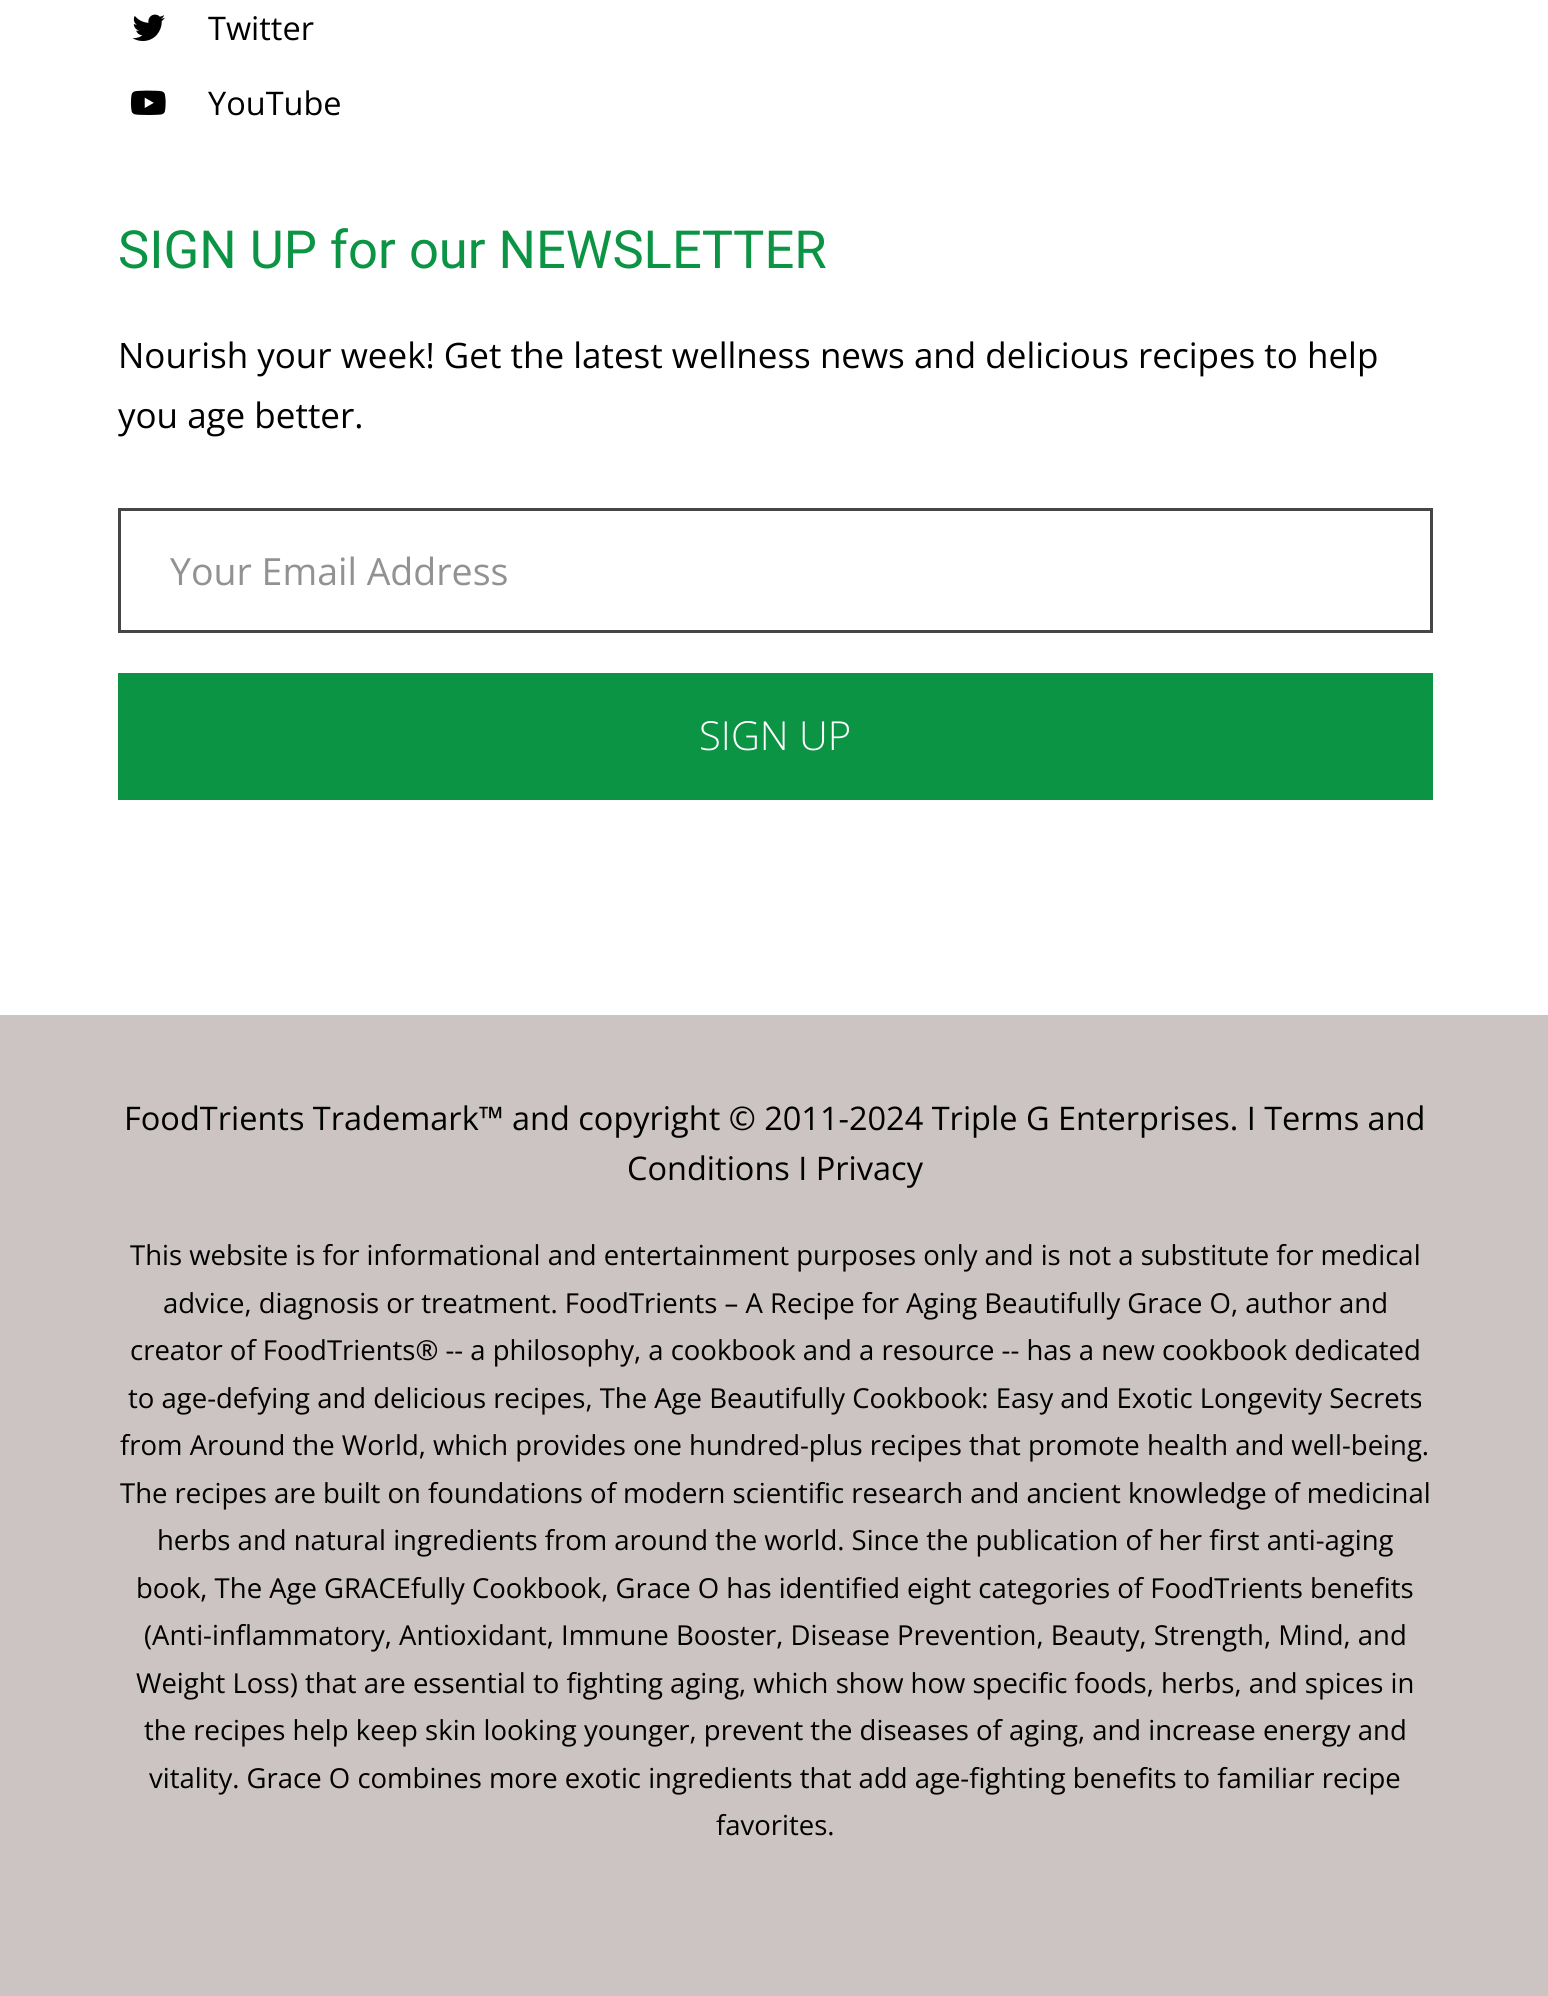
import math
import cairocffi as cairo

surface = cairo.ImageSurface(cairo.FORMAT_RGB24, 1548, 1996)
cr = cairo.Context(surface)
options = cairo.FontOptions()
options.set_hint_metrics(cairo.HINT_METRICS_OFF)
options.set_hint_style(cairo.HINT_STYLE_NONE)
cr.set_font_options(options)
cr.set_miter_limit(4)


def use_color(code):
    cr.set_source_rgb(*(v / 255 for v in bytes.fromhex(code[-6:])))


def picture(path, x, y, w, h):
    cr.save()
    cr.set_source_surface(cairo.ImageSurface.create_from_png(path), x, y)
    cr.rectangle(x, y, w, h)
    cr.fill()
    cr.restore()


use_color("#cbc4c3")
cr.paint()
use_color("#ffffff")
cr.rectangle(0, 0, 1548, 1015)
cr.fill()
picture("img1.png", 132, 14, 33, 27)
cr.select_font_face("Open Sans")
cr.set_font_size(32.5)
use_color("#000000")
cr.move_to(208, 40)
cr.show_text("Twitter")
picture("img2.png", 130, 90, 36, 25)
cr.move_to(208, 115)
cr.show_text("YouTube")
cr.select_font_face("Roboto")
cr.set_font_size(52.5)
use_color("#0b9444")
cr.move_to(118, 268)
cr.show_text("SIGN UP for our NEWSLETTER")
cr.select_font_face("Open Sans")
cr.set_font_size(35)
use_color("#000000")
cr.move_to(118, 368)
cr.show_text("Nourish your week! Get the latest wellness news and delicious recipes to help")
cr.move_to(118, 428)
cr.show_text("you age better.")
cr.rectangle(119.5, 509.5, 1312, 122)
use_color("#464646")
cr.set_line_width(3)
cr.stroke()
cr.set_font_size(37.5)
use_color("#929292")
cr.move_to(170, 585)
cr.show_text("Your Email Address")
use_color("#0b9444")
cr.rectangle(118, 673, 1315, 127)
cr.fill()
cr.select_font_face("Open Sans Light")
cr.set_font_size(40)
use_color("#ffffff")
cr.move_to(699, 750)
cr.show_text("SIGN UP")
cr.select_font_face("Open Sans")
cr.set_font_size(32.5)
use_color("#000000")
cr.move_to(124, 1130)
cr.show_text("FoodTrients Trademark™ and copyright © 2011-2024 Triple G Enterprises. I Terms and")
cr.move_to(627, 1180)
cr.show_text("Conditions I Privacy")
cr.set_font_size(27.5)
cr.move_to(130, 1265)
cr.show_text("This website is for informational and entertainment purposes only and is not a substitute for medical")
cr.move_to(163, 1313)
cr.show_text("advice, diagnosis or treatment. FoodTrients – A Recipe for Aging Beautifully Grace O, author and")
cr.move_to(130, 1360)
cr.show_text("creator of FoodTrients® -- a philosophy, a cookbook and a resource -- has a new cookbook dedicated")
cr.move_to(128, 1408)
cr.show_text("to age-defying and delicious recipes, The Age Beautifully Cookbook: Easy and Exotic Longevity Secrets")
cr.move_to(120, 1455)
cr.show_text("from Around the World, which provides one hundred-plus recipes that promote health and well-being.")
cr.move_to(120, 1503)
cr.show_text("The recipes are built on foundations of modern scientific research and ancient knowledge of medicinal")
cr.move_to(157, 1550)
cr.show_text("herbs and natural ingredients from around the world. Since the publication of her first anti-aging")
cr.move_to(136, 1598)
cr.show_text("book, The Age GRACEfully Cookbook, Grace O has identified eight categories of FoodTrients benefits")
cr.move_to(144, 1645)
cr.show_text("(Anti-inflammatory, Antioxidant, Immune Booster, Disease Prevention, Beauty, Strength, Mind, and")
cr.move_to(136, 1693)
cr.show_text("Weight Loss) that are essential to fighting aging, which show how specific foods, herbs, and spices in")
cr.move_to(144, 1740)
cr.show_text("the recipes help keep skin looking younger, prevent the diseases of aging, and increase energy and")
cr.move_to(149, 1788)
cr.show_text("vitality. Grace O combines more exotic ingredients that add age-fighting benefits to familiar recipe")
cr.move_to(716, 1835)
cr.show_text("favorites.")
surface.write_to_png("result.png")
